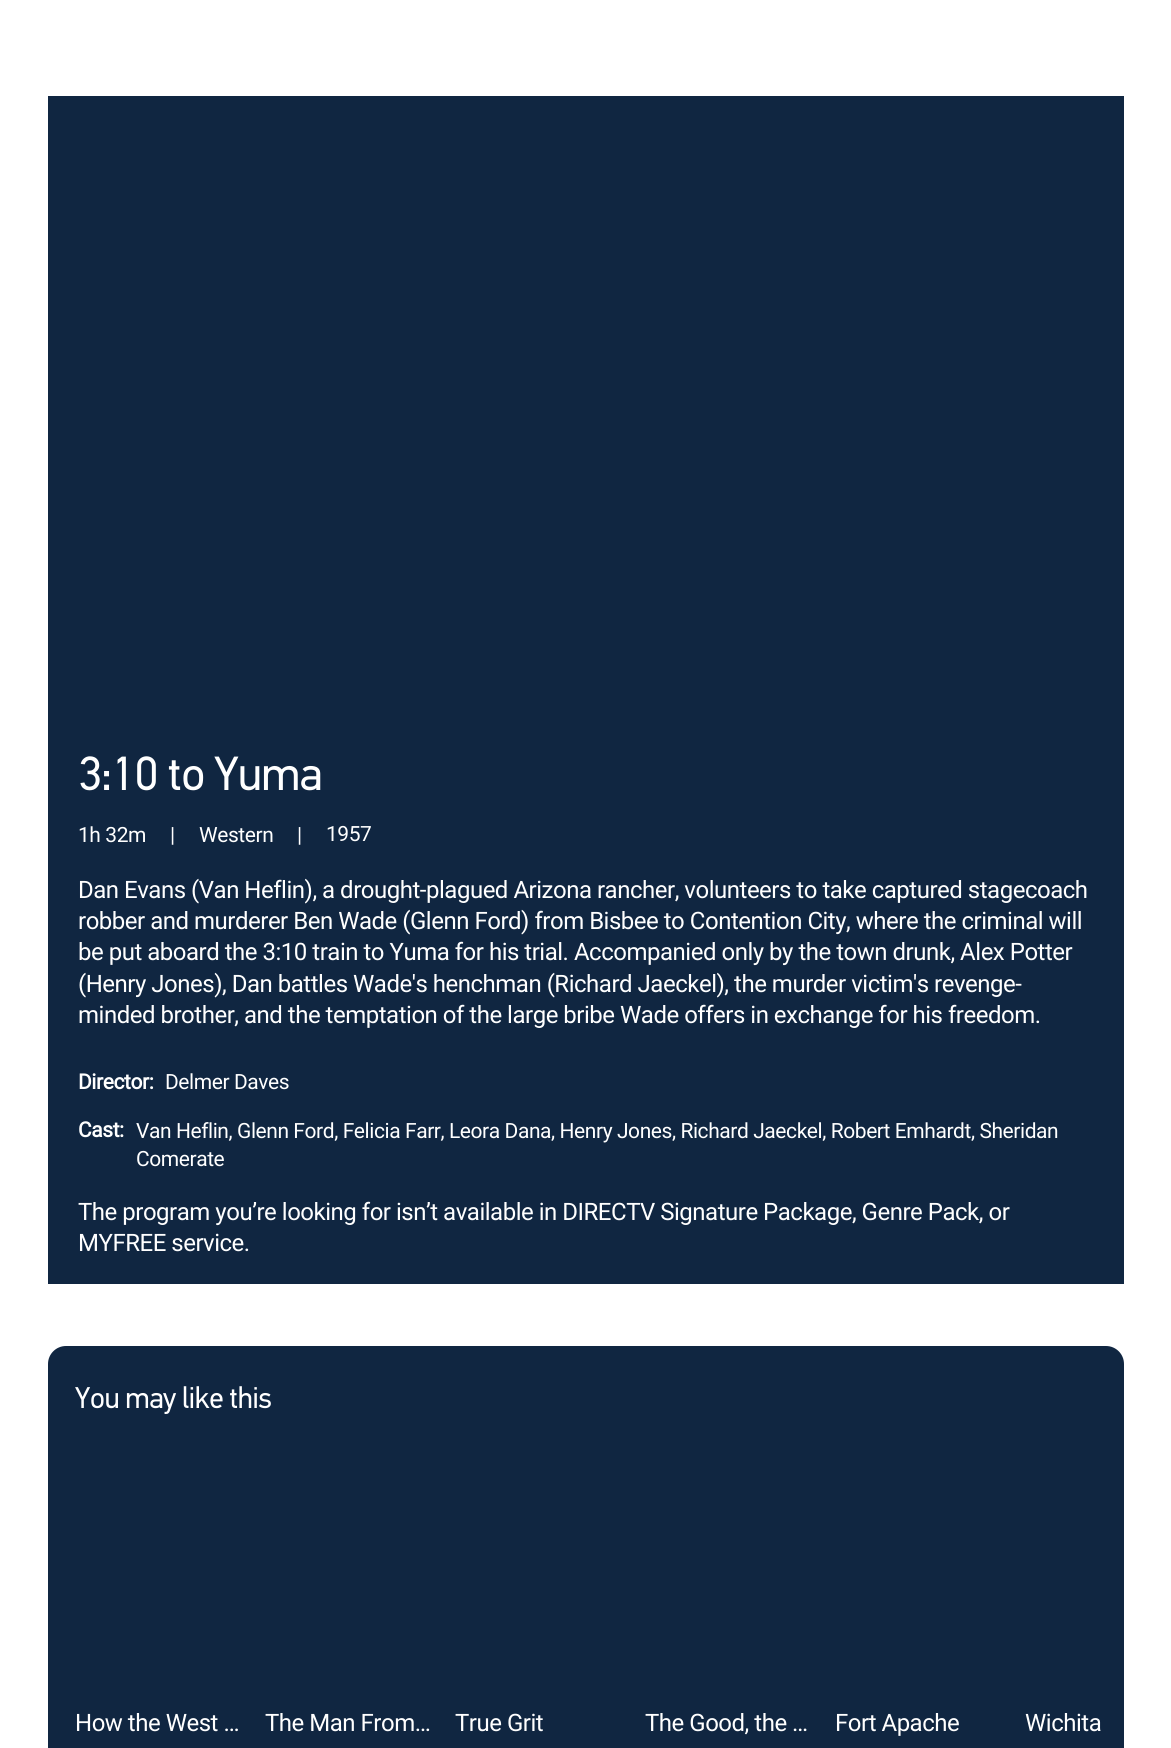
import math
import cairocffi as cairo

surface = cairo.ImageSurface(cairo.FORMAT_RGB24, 1171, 1748)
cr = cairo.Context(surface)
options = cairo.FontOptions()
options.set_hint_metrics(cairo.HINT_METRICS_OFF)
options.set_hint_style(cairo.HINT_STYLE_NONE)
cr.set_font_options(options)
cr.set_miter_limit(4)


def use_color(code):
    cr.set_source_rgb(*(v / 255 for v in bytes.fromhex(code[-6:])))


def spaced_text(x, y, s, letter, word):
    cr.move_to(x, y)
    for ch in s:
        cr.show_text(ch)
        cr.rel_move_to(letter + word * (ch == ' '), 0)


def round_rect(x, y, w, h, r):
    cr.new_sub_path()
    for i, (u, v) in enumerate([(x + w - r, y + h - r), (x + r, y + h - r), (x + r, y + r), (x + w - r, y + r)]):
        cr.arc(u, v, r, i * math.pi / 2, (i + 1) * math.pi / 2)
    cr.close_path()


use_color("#ffffff")
cr.paint()
use_color("#102641")
cr.rectangle(48, 96, 1076, 1188)
cr.fill()
cr.select_font_face("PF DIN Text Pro")
cr.set_font_size(48)
use_color("#ffffff")
spaced_text(78, 790, "3:10 to Yuma", -1, 0)
cr.select_font_face("Roboto")
cr.set_font_size(21)
spaced_text(78, 842, "1h 32m", -0.42, 0)
spaced_text(170, 842, "|", -0.42, 0)
spaced_text(199, 842, "Western", -0.42, 0)
spaced_text(297, 842, "|", -0.42, 0)
spaced_text(326, 841, "1957", -0.48, 0)
cr.set_font_size(24)
spaced_text(78, 898, "Dan Evans (Van Heflin), a drought-plagued Arizona rancher, volunteers to take captured stagecoach", -0.48, 0)
spaced_text(78, 929, "robber and murderer Ben Wade (Glenn Ford) from Bisbee to Contention City, where the criminal will", -0.48, 0)
spaced_text(78, 960, "be put aboard the 3:10 train to Yuma for his trial. Accompanied only by the town drunk, Alex Potter", -0.48, 0)
spaced_text(78, 992, "(Henry Jones), Dan battles Wade's henchman (Richard Jaeckel), the murder victim's revenge-", -0.48, 0)
spaced_text(78, 1023, "minded brother, and the temptation of the large bribe Wade offers in exchange for his freedom.", -0.48, 0)
cr.select_font_face("Roboto", cairo.FONT_SLANT_NORMAL, cairo.FONT_WEIGHT_BOLD)
cr.set_font_size(21)
spaced_text(78, 1089, "Director:", -0.42, 0)
cr.select_font_face("Roboto")
spaced_text(165, 1089, "Delmer Daves", -0.42, 0)
cr.select_font_face("Roboto", cairo.FONT_SLANT_NORMAL, cairo.FONT_WEIGHT_BOLD)
spaced_text(78, 1137, "Cast:", -0.42, 0)
cr.select_font_face("Roboto")
spaced_text(136, 1138, "Van Heflin, Glenn Ford, Felicia Farr, Leora Dana, Henry Jones, Richard Jaeckel, Robert Emhardt, Sheridan", -0.42, 0)
spaced_text(136, 1166, "Comerate", -0.42, 0)
cr.set_font_size(24)
spaced_text(78, 1220, "The program you’re looking for isn’t available in DIRECTV Signature Package, Genre Pack, or", -0.48, 0)
spaced_text(78, 1251, "MYFREE service.", -0.48, 0)
use_color("#102641")
round_rect(48, 1346, 1076, 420, 18)
cr.fill()
cr.select_font_face("PF DIN Text Pro")
cr.set_font_size(30)
use_color("#ffffff")
spaced_text(75, 1408, "You may like this", -0.6, 0)
cr.select_font_face("Roboto")
cr.set_font_size(24)
spaced_text(75, 1731, "How the West …", -0.48, 0)
spaced_text(265, 1731, "The Man From…", -0.48, 0)
spaced_text(455, 1731, "True Grit", -0.48, 0)
spaced_text(645, 1731, "The Good, the …", -0.48, 0)
spaced_text(835, 1731, "Fort Apache", -0.48, 0)
spaced_text(1025, 1731, "Wichita", -0.48, 0)
surface.write_to_png("result.png")
